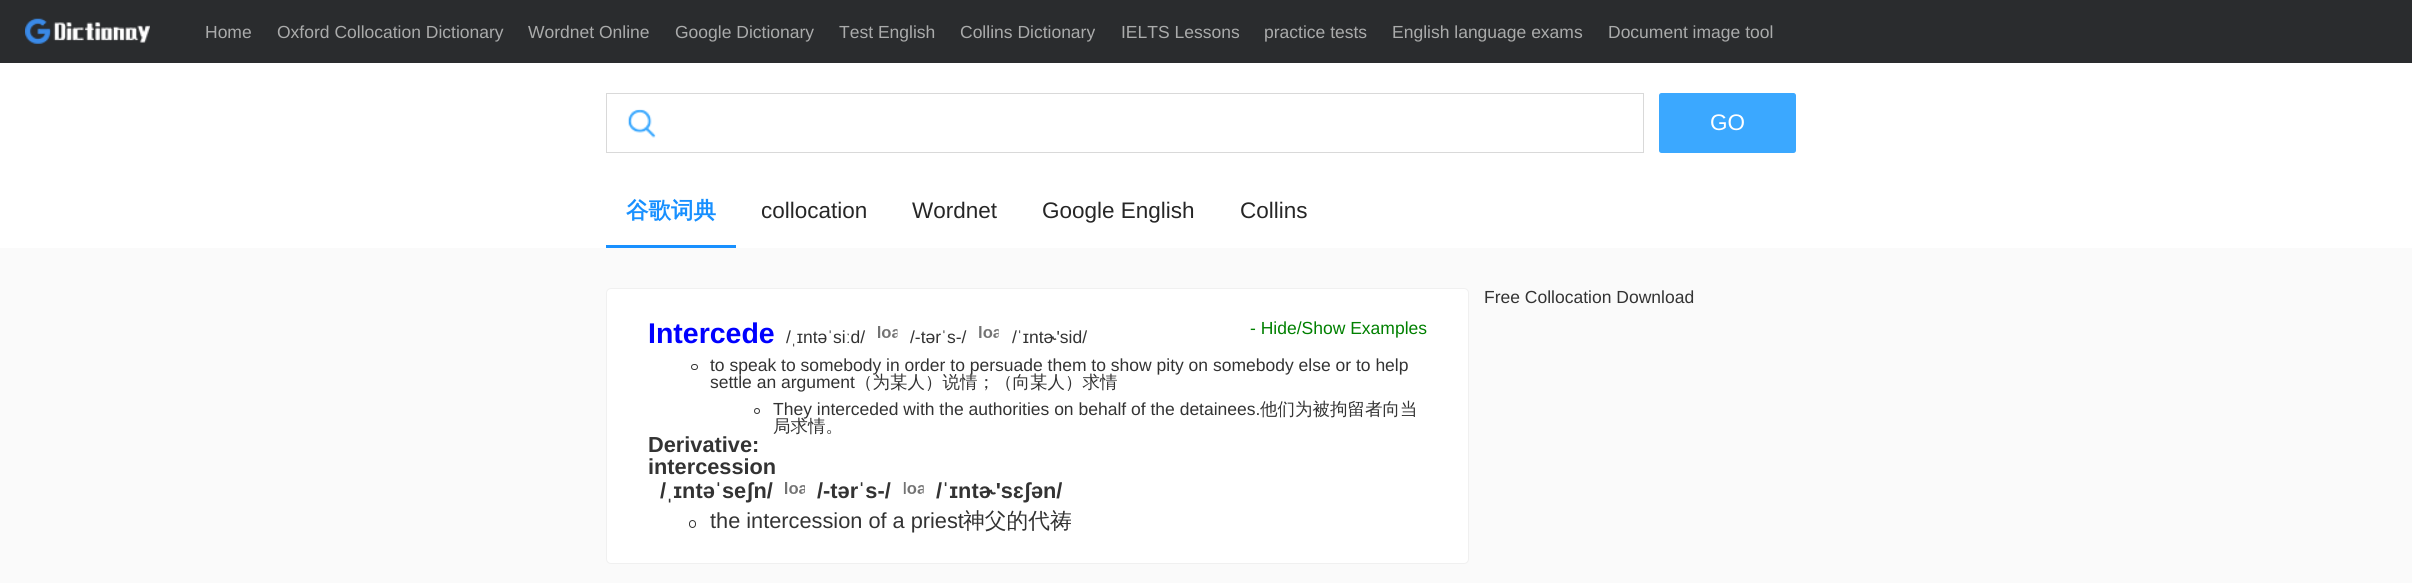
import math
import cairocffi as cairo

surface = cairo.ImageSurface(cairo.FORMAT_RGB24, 2412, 583)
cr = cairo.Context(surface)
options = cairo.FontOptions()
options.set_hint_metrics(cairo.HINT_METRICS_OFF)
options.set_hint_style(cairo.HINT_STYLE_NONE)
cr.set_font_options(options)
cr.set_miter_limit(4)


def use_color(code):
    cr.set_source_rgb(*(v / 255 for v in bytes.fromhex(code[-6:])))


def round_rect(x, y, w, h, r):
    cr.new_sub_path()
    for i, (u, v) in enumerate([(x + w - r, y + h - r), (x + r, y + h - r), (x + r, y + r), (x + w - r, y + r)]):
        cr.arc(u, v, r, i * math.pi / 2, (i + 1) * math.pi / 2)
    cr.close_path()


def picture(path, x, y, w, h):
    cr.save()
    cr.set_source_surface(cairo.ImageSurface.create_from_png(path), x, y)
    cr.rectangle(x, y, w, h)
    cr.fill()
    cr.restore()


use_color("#fafafa")
cr.paint()
use_color("#2a2c2e")
cr.rectangle(0, 0, 2412, 63)
cr.fill()
picture("img1.png", 25, 18, 125, 26)
cr.select_font_face("Liberation Sans")
cr.set_font_size(17.5)
use_color("#aaabab")
cr.move_to(205, 38)
cr.show_text("Home")
cr.move_to(277, 38)
cr.show_text("Oxford Collocation Dictionary")
cr.move_to(528, 38)
cr.show_text("Wordnet Online")
cr.move_to(675, 38)
cr.show_text("Google Dictionary")
cr.move_to(839, 38)
cr.show_text("Test English")
cr.move_to(960, 38)
cr.show_text("Collins Dictionary")
cr.move_to(1121, 38)
cr.show_text("IELTS Lessons")
cr.move_to(1264, 38)
cr.show_text("practice tests")
cr.move_to(1392, 38)
cr.show_text("English language exams")
cr.move_to(1608, 38)
cr.show_text("Document image tool")
use_color("#ffffff")
cr.rectangle(0, 63, 2412, 185)
cr.fill()
cr.rectangle(606.5, 93.5, 1037, 59)
use_color("#d9d9d9")
cr.set_line_width(1)
cr.stroke()
picture("img2.png", 627, 109, 29, 29)
use_color("#3ba8ff")
round_rect(1659, 93, 137, 60, 2.5)
cr.fill()
cr.set_font_size(22.5)
use_color("#ffffff")
cr.move_to(1710, 130)
cr.show_text("GO")
use_color("#1890ff")
cr.rectangle(606, 245, 130, 3)
cr.fill()
cr.select_font_face("WenQuanYi Zen Hei", cairo.FONT_SLANT_NORMAL, cairo.FONT_WEIGHT_BOLD)
cr.move_to(626, 218)
cr.show_text("谷歌词典")
cr.select_font_face("Liberation Sans")
use_color("#262626")
cr.move_to(761, 218)
cr.show_text("collocation")
cr.move_to(912, 218)
cr.show_text("Wordnet")
cr.move_to(1042, 218)
cr.show_text("Google English")
cr.move_to(1240, 218)
cr.show_text("Collins")
cr.set_font_size(17.5)
use_color("#333333")
cr.move_to(1484, 303)
cr.show_text("Free Collocation Download")
use_color("#ffffff")
round_rect(606.5, 288.5, 862, 275, 4.5)
cr.fill_preserve()
use_color("#f0f0f0")
cr.stroke()
use_color("#008000")
cr.move_to(1250, 334)
cr.show_text("- Hide/Show Examples")
cr.select_font_face("Liberation Sans", cairo.FONT_SLANT_NORMAL, cairo.FONT_WEIGHT_BOLD)
cr.set_font_size(28.5)
use_color("#0000ff")
cr.move_to(648, 343)
cr.show_text("Intercede")
cr.select_font_face("Liberation Sans")
cr.set_font_size(17.5)
use_color("#333333")
cr.move_to(786, 343)
cr.show_text("/ˌɪntəˈsiːd/")
picture("img3.png", 878, 326, 20, 12)
cr.move_to(910, 343)
cr.show_text("/-tərˈs-/")
picture("img4.png", 979, 326, 20, 12)
cr.move_to(1012, 343)
cr.show_text("/ˈɪntɚ'sid/")
round_rect(691.5, 364.5, 6, 5, 2.5)
cr.stroke()
cr.move_to(710, 371)
cr.show_text("to speak to somebody in order to persuade them to show pity on somebody else or to help")
cr.move_to(710, 388)
cr.show_text("settle an argument")
cr.select_font_face("WenQuanYi Zen Hei Medium")
cr.move_to(855, 388)
cr.show_text("（为某人）说情；（向某人）求情")
cr.new_path()
cr.arc(757, 411, 2.5, 0, 2 * math.pi)
cr.stroke()
cr.select_font_face("Liberation Sans")
cr.move_to(773, 415)
cr.show_text("They interceded with the authorities on behalf of the detainees.")
cr.select_font_face("WenQuanYi Zen Hei Medium")
cr.move_to(1260, 415)
cr.show_text("他们为被拘留者向当")
cr.move_to(773, 432)
cr.show_text("局求情。")
cr.select_font_face("Liberation Sans", cairo.FONT_SLANT_NORMAL, cairo.FONT_WEIGHT_BOLD)
cr.set_font_size(21.75)
cr.move_to(648, 452)
cr.show_text("Derivative:")
cr.move_to(648, 474)
cr.show_text("intercession")
cr.move_to(660, 498)
cr.show_text("/ˌɪntəˈseʃn/")
picture("img5.png", 785, 482, 20, 12)
cr.move_to(817, 498)
cr.show_text("/-tərˈs-/")
picture("img6.png", 903, 482, 21, 12)
cr.move_to(936, 498)
cr.show_text("/ˈɪntɚ'sɛʃən/")
round_rect(689.5, 520.5, 6, 7, 3)
cr.stroke()
cr.select_font_face("Liberation Sans")
cr.move_to(710, 528)
cr.show_text("the intercession of a priest")
cr.select_font_face("WenQuanYi Zen Hei Medium")
cr.move_to(963, 528)
cr.show_text("神父的代祷")
surface.write_to_png("result.png")
